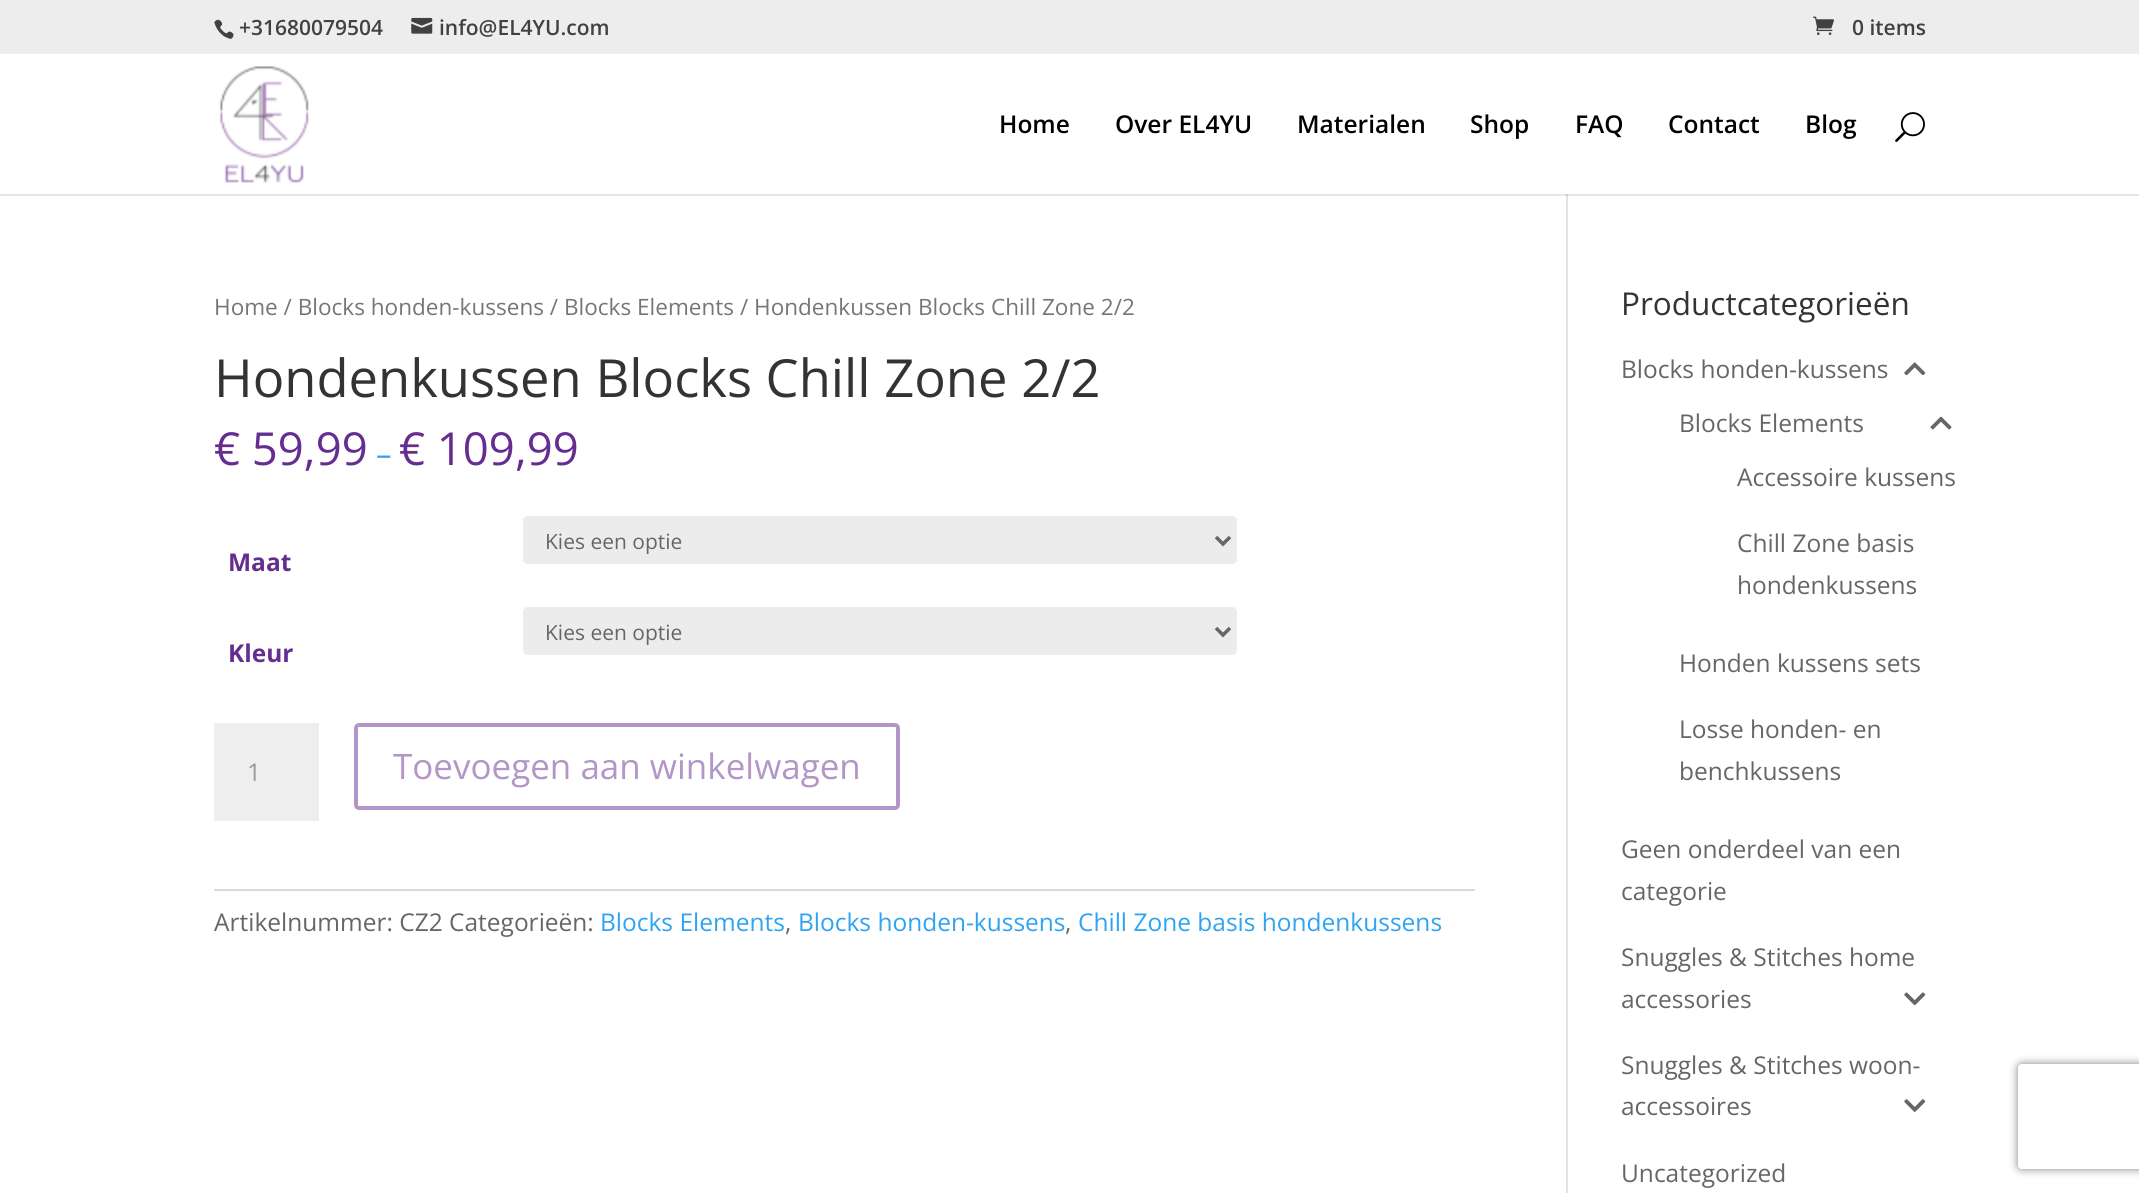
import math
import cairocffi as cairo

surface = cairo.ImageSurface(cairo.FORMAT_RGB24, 2139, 1193)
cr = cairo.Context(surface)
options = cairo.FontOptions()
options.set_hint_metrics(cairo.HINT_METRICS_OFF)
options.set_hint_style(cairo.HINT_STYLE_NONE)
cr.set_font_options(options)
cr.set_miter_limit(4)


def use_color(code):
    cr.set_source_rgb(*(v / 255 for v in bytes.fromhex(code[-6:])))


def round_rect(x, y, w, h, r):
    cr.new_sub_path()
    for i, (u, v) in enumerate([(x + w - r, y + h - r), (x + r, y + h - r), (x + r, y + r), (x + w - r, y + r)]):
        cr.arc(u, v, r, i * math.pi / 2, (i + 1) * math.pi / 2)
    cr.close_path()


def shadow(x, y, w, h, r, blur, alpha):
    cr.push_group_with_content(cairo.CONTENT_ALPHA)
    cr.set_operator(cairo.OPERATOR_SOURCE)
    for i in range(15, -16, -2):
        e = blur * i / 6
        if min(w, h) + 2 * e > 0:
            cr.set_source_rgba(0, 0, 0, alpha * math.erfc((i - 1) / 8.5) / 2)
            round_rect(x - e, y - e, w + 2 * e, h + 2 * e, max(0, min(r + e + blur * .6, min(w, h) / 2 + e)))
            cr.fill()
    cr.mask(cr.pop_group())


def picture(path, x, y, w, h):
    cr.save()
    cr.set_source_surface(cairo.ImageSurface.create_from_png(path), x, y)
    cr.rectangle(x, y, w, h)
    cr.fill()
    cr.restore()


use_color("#ffffff")
cr.paint()
use_color("#e6e6e6")
cr.rectangle(0, 194, 2139, 2)
cr.fill()
use_color("#ededed")
cr.rectangle(0, 0, 2139, 54)
cr.fill()
picture("img1.png", 214, 19, 20, 20)
cr.select_font_face("Open Sans SemiBold")
cr.set_font_size(21)
use_color("#414042")
cr.move_to(239, 35)
cr.show_text("+31680079504")
picture("img2.png", 411, 17, 22, 17)
cr.move_to(439, 35)
cr.show_text("info@EL4YU.com")
picture("img3.png", 1813, 16, 21, 19)
cr.move_to(1852, 35)
cr.show_text("0 items")
picture("img4.png", 219, 66, 90, 117)
cr.set_font_size(24.5)
use_color("#000000")
cr.move_to(999, 133)
cr.show_text("Home")
cr.move_to(1115, 133)
cr.show_text("Over EL4YU")
cr.move_to(1297, 133)
cr.show_text("Materialen")
cr.move_to(1470, 133)
cr.show_text("Shop")
cr.move_to(1575, 133)
cr.show_text("FAQ")
cr.move_to(1668, 133)
cr.show_text("Contact")
cr.move_to(1805, 133)
cr.show_text("Blog")
picture("img5.png", 1895, 112, 30, 30)
use_color("#e2e2e2")
cr.rectangle(1566, 196, 2, 997)
cr.fill()
use_color("#cbcbcb")
cr.rectangle(1566, 194, 2, 2)
cr.fill()
cr.select_font_face("Open Sans")
cr.set_font_size(22.55)
use_color("#767676")
cr.move_to(214, 315)
cr.show_text("Home / Blocks honden-kussens / Blocks Elements / Hondenkussen Blocks Chill Zone 2/2")
cr.set_font_size(52.5)
use_color("#333333")
cr.move_to(214, 397)
cr.show_text("Hondenkussen Blocks Chill Zone 2/2")
cr.set_font_size(45.5)
use_color("#662d91")
cr.move_to(214, 465)
cr.show_text("€ 59,99")
cr.set_font_size(31)
use_color("#2ea3f2")
cr.move_to(376, 465)
cr.show_text("–")
cr.set_font_size(45.5)
use_color("#662d91")
cr.move_to(399, 465)
cr.show_text("€ 109,99")
use_color("#ececec")
round_rect(523, 516, 714, 48, 5)
cr.fill()
cr.new_path()
cr.move_to(1216, 537)
cr.line_to(1223, 544)
cr.line_to(1230, 537)
use_color("#666666")
cr.set_line_width(3.5)
cr.stroke()
cr.set_font_size(21)
cr.move_to(545, 549)
cr.show_text("Kies een optie")
cr.select_font_face("Open Sans", cairo.FONT_SLANT_NORMAL, cairo.FONT_WEIGHT_BOLD)
cr.set_font_size(24.5)
use_color("#662d91")
cr.move_to(228, 571)
cr.show_text("Maat")
use_color("#ececec")
round_rect(523, 607, 714, 48, 5)
cr.fill()
cr.new_path()
cr.move_to(1216, 628)
cr.line_to(1223, 635)
cr.line_to(1230, 628)
use_color("#666666")
cr.stroke()
cr.select_font_face("Open Sans")
cr.set_font_size(21)
cr.move_to(545, 640)
cr.show_text("Kies een optie")
cr.select_font_face("Open Sans", cairo.FONT_SLANT_NORMAL, cairo.FONT_WEIGHT_BOLD)
cr.set_font_size(24.5)
use_color("#662d91")
cr.move_to(228, 662)
cr.show_text("Kleur")
use_color("#eeeeee")
cr.rectangle(214, 723, 105, 98)
cr.fill()
cr.select_font_face("Open Sans")
use_color("#999999")
cr.move_to(247, 781)
cr.show_text("1")
round_rect(356, 725, 542, 83, 3)
use_color("#b396c8")
cr.set_line_width(4)
cr.stroke()
cr.set_font_size(35)
cr.move_to(393, 779)
cr.show_text("Toevoegen aan winkelwagen")
use_color("#dadada")
cr.rectangle(214, 889, 1261, 2)
cr.fill()
cr.set_font_size(24.5)
use_color("#666666")
cr.move_to(214, 931)
cr.show_text("Artikelnummer: CZ2 Categorieën:")
use_color("#2ea3f2")
cr.move_to(600, 931)
cr.show_text("Blocks Elements")
use_color("#666666")
cr.move_to(785, 931)
cr.show_text(",")
use_color("#2ea3f2")
cr.move_to(798, 931)
cr.show_text("Blocks honden-kussens")
use_color("#666666")
cr.move_to(1065, 931)
cr.show_text(",")
use_color("#2ea3f2")
cr.move_to(1078, 931)
cr.show_text("Chill Zone basis hondenkussens")
cr.set_font_size(31.5)
use_color("#333333")
cr.move_to(1621, 315)
cr.show_text("Productcategorieën")
cr.set_font_size(24.5)
use_color("#666666")
cr.move_to(1621, 378)
cr.show_text("Blocks honden-kussens")
picture("img6.png", 1904, 362, 22, 14)
cr.move_to(1679, 432)
cr.show_text("Blocks Elements")
picture("img7.png", 1930, 416, 22, 14)
cr.move_to(1737, 486)
cr.show_text("Accessoire kussens")
cr.move_to(1737, 552)
cr.show_text("Chill Zone basis")
cr.move_to(1737, 594)
cr.show_text("hondenkussens")
cr.move_to(1679, 672)
cr.show_text("Honden kussens sets")
cr.move_to(1679, 738)
cr.show_text("Losse honden- en")
cr.move_to(1679, 780)
cr.show_text("benchkussens")
cr.move_to(1621, 858)
cr.show_text("Geen onderdeel van een")
cr.move_to(1621, 900)
cr.show_text("categorie")
cr.move_to(1621, 966)
cr.show_text("Snuggles & Stitches home")
cr.move_to(1621, 1008)
cr.show_text("accessories")
picture("img8.png", 1904, 992, 22, 14)
cr.move_to(1621, 1074)
cr.show_text("Snuggles & Stitches woon-")
cr.move_to(1621, 1115)
cr.show_text("accessoires")
picture("img9.png", 1904, 1099, 22, 13)
cr.move_to(1621, 1182)
cr.show_text("Uncategorized")
cr.save()
cr.set_fill_rule(cairo.FILL_RULE_EVEN_ODD)
cr.new_path()
cr.move_to(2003, 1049)
cr.line_to(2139, 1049)
cr.line_to(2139, 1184)
cr.line_to(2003, 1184)
cr.close_path()
cr.move_to(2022, 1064)
cr.line_to(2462, 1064)
cr.curve_to(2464, 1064, 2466, 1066, 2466, 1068)
cr.line_to(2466, 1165)
cr.curve_to(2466, 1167, 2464, 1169, 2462, 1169)
cr.line_to(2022, 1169)
cr.curve_to(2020, 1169, 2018, 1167, 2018, 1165)
cr.line_to(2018, 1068)
cr.curve_to(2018, 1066, 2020, 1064, 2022, 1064)
cr.close_path()
cr.clip()
use_color("#808080")
shadow(2018, 1064, 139, 105, 4, 4.5, 1)
cr.restore()
surface.write_to_png("result.png")
